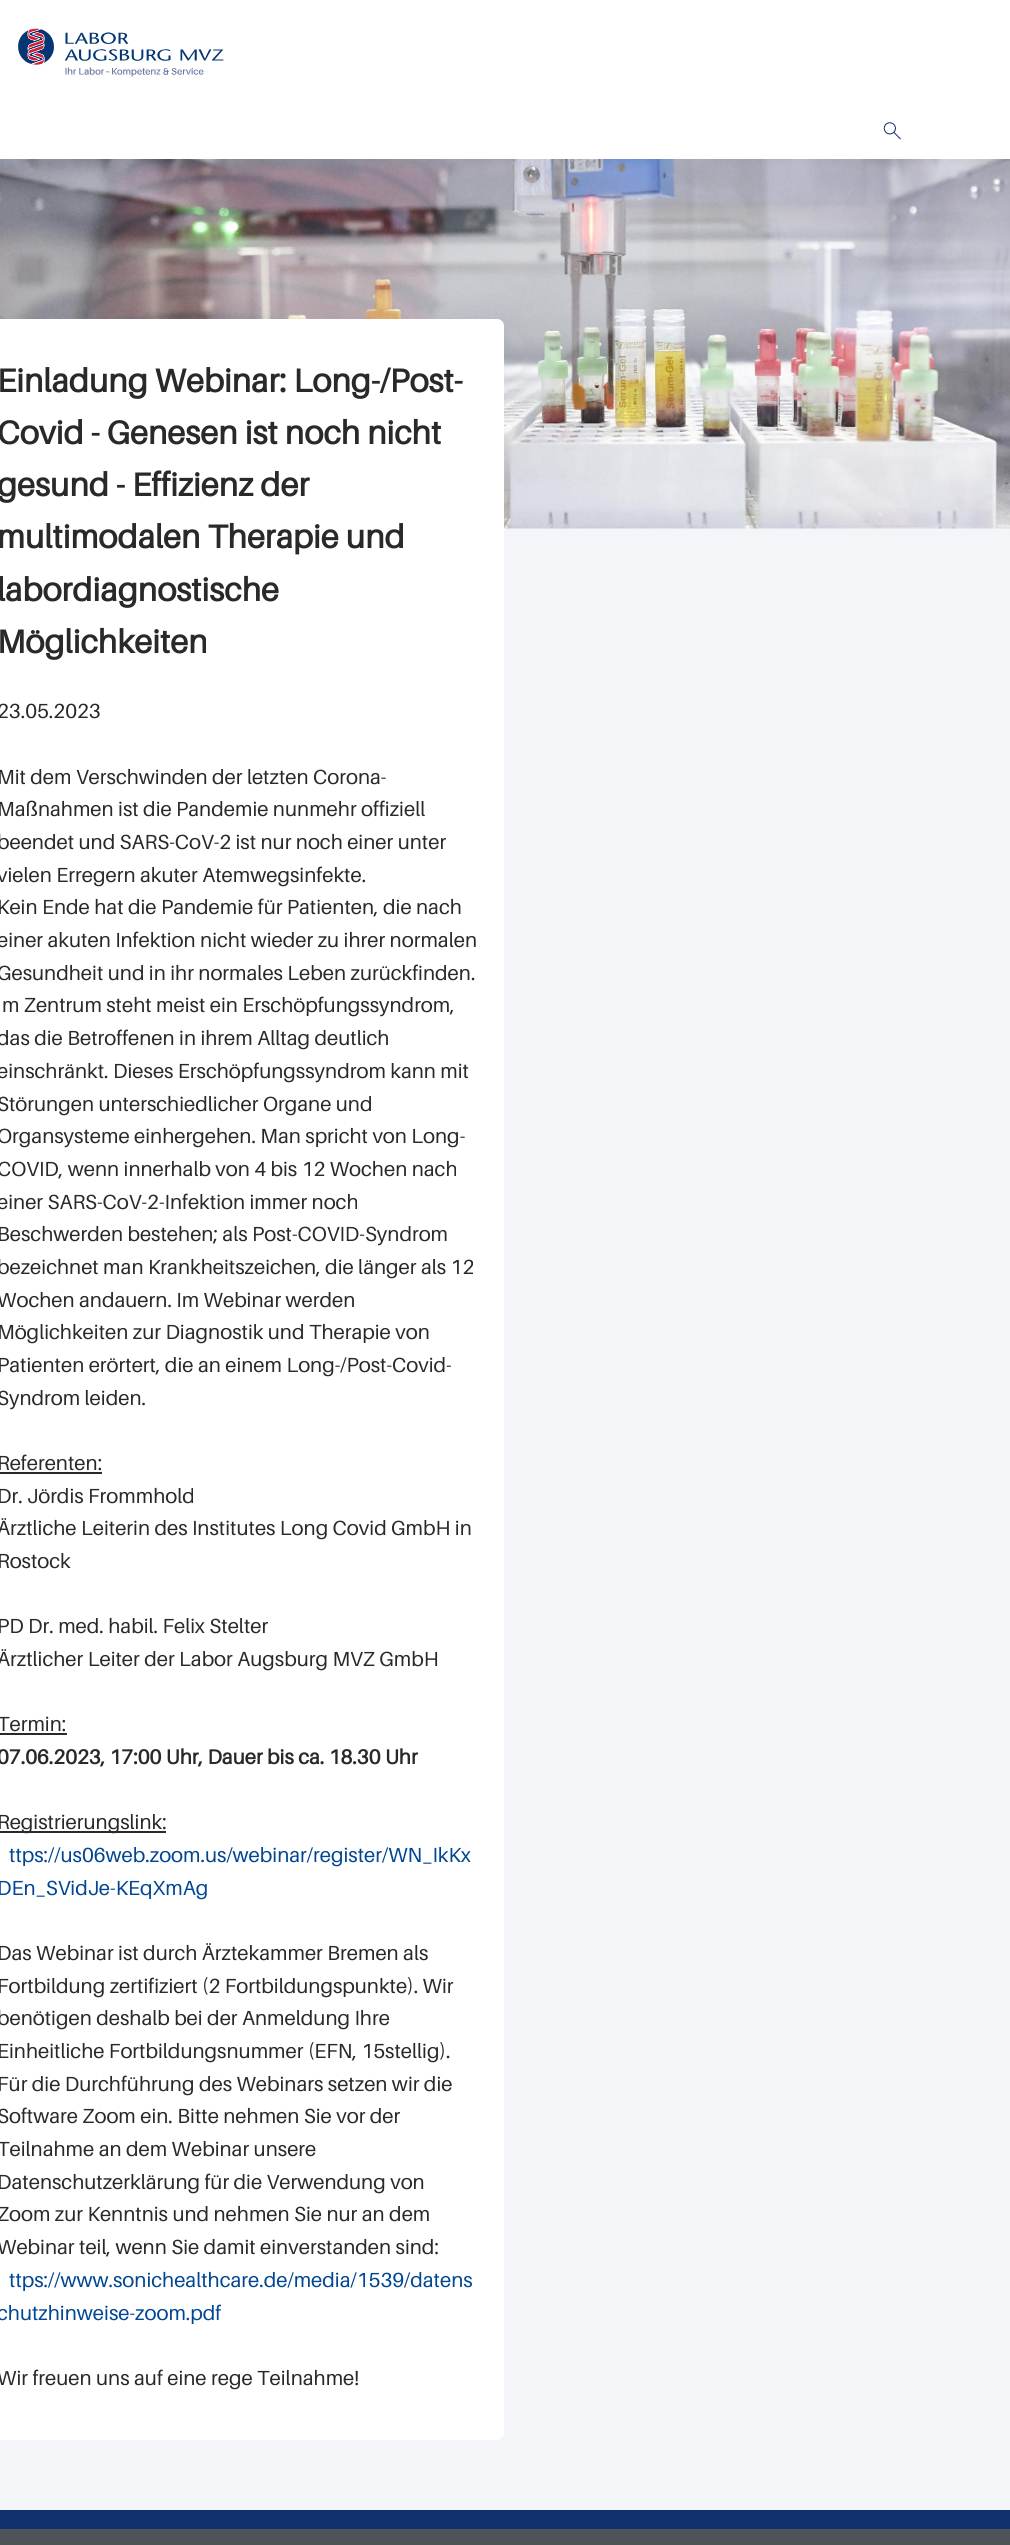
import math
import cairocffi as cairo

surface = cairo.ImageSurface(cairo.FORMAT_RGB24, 1010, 2545)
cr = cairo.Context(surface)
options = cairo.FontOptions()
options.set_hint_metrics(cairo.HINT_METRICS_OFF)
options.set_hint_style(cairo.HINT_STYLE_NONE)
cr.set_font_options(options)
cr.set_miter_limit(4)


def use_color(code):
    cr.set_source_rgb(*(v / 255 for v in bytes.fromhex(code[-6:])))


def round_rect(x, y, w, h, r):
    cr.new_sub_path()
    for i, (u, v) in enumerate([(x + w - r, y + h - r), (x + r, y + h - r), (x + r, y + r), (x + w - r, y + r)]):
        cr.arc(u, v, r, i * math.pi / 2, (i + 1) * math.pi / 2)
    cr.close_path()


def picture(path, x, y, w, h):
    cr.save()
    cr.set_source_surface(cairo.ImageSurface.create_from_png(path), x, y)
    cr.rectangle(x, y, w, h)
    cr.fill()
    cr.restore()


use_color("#f3f5f9")
cr.paint()
picture("img1.png", 0, 159, 1010, 370)
use_color("#ffffff")
cr.rectangle(0, 0, 1010, 159)
cr.fill()
picture("img2.png", 18, 28, 206, 49)
picture("img3.png", 883, 122, 18, 18)
round_rect(-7, 319, 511, 2121, 7)
cr.fill()
cr.select_font_face("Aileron", cairo.FONT_SLANT_NORMAL, cairo.FONT_WEIGHT_BOLD)
cr.set_font_size(32.7)
use_color("#292929")
cr.move_to(-3, 392)
cr.show_text("Einladung Webinar: Long-/Post-")
cr.move_to(-3, 444)
cr.show_text("Covid - Genesen ist noch nicht")
cr.move_to(-3, 496)
cr.show_text("gesund - Effizienz der")
cr.move_to(-3, 548)
cr.show_text("multimodalen Therapie und")
cr.move_to(-3, 601)
cr.show_text("labordiagnostische")
cr.move_to(-3, 653)
cr.show_text("Möglichkeiten")
cr.select_font_face("Aileron")
cr.set_font_size(20.4)
cr.move_to(-3, 718)
cr.show_text("23.05.2023")
cr.move_to(-3, 784)
cr.show_text("Mit dem Verschwinden der letzten Corona-")
cr.move_to(-3, 816)
cr.show_text("Maßnahmen ist die Pandemie nunmehr offiziell")
cr.move_to(-3, 849)
cr.show_text("beendet und SARS-CoV-2 ist nur noch einer unter")
cr.move_to(-3, 882)
cr.show_text("vielen Erregern akuter Atemwegsinfekte.")
cr.move_to(-3, 914)
cr.show_text("Kein Ende hat die Pandemie für Patienten, die nach")
cr.move_to(-3, 947)
cr.show_text("einer akuten Infektion nicht wieder zu ihrer normalen")
cr.move_to(-3, 980)
cr.show_text("Gesundheit und in ihr normales Leben zurückfinden.")
cr.move_to(2, 1012)
cr.show_text("m Zentrum steht meist ein Erschöpfungssyndrom,")
cr.move_to(-3, 1045)
cr.show_text("das die Betroffenen in ihrem Alltag deutlich")
cr.move_to(-3, 1078)
cr.show_text("einschränkt. Dieses Erschöpfungssyndrom kann mit")
cr.move_to(-3, 1111)
cr.show_text("Störungen unterschiedlicher Organe und")
cr.move_to(-3, 1143)
cr.show_text("Organsysteme einhergehen. Man spricht von Long-")
cr.move_to(-3, 1176)
cr.show_text("COVID, wenn innerhalb von 4 bis 12 Wochen nach")
cr.move_to(-3, 1209)
cr.show_text("einer SARS-CoV-2-Infektion immer noch")
cr.move_to(-3, 1241)
cr.show_text("Beschwerden bestehen; als Post-COVID-Syndrom")
cr.move_to(-3, 1274)
cr.show_text("bezeichnet man Krankheitszeichen, die länger als 12")
cr.move_to(-3, 1307)
cr.show_text("Wochen andauern. Im Webinar werden")
cr.move_to(-3, 1339)
cr.show_text("Möglichkeiten zur Diagnostik und Therapie von")
cr.move_to(-3, 1372)
cr.show_text("Patienten erörtert, die an einem Long-/Post-Covid-")
cr.move_to(-3, 1405)
cr.show_text("Syndrom leiden.")
cr.move_to(-3, 1470)
cr.show_text("Referenten:")
cr.rectangle(0, 1472, 102, 2)
cr.fill()
cr.move_to(-3, 1503)
cr.show_text("Dr. Jördis Frommhold")
cr.move_to(-3, 1535)
cr.show_text("Ärztliche Leiterin des Institutes Long Covid GmbH in")
cr.move_to(-3, 1568)
cr.show_text("Rostock")
cr.move_to(-3, 1633)
cr.show_text("PD Dr. med. habil. Felix Stelter")
cr.move_to(-3, 1666)
cr.show_text("Ärztlicher Leiter der Labor Augsburg MVZ GmbH")
cr.move_to(-3, 1731)
cr.show_text("Termin:")
cr.rectangle(0, 1733, 67, 2)
cr.fill()
cr.select_font_face("Aileron", cairo.FONT_SLANT_NORMAL, cairo.FONT_WEIGHT_BOLD)
cr.move_to(-3, 1764)
cr.show_text("07.06.2023, 17:00 Uhr, Dauer bis ca. 18.30 Uhr")
cr.rectangle(0, 1831, 166, 2)
cr.fill()
cr.select_font_face("Aileron")
cr.move_to(-3, 1829)
cr.show_text("Registrierungslink:")
use_color("#004692")
cr.move_to(9, 1862)
cr.show_text("ttps://us06web.zoom.us/webinar/register/WN_IkKx")
cr.move_to(-3, 1895)
cr.show_text("DEn_SVidJe-KEqXmAg")
use_color("#292929")
cr.move_to(-3, 1960)
cr.show_text("Das Webinar ist durch Ärztekammer Bremen als")
cr.move_to(-3, 1993)
cr.show_text("Fortbildung zertifiziert (2 Fortbildungspunkte). Wir")
cr.move_to(-3, 2025)
cr.show_text("benötigen deshalb bei der Anmeldung Ihre")
cr.move_to(-3, 2058)
cr.show_text("Einheitliche Fortbildungsnummer (EFN, 15stellig).")
cr.move_to(-3, 2091)
cr.show_text("Für die Durchführung des Webinars setzen wir die")
cr.move_to(-3, 2123)
cr.show_text("Software Zoom ein. Bitte nehmen Sie vor der")
cr.move_to(-3, 2156)
cr.show_text("Teilnahme an dem Webinar unsere")
cr.move_to(-3, 2189)
cr.show_text("Datenschutzerklärung für die Verwendung von")
cr.move_to(-3, 2221)
cr.show_text("Zoom zur Kenntnis und nehmen Sie nur an dem")
cr.move_to(-3, 2254)
cr.show_text("Webinar teil, wenn Sie damit einverstanden sind:")
use_color("#004692")
cr.move_to(9, 2287)
cr.show_text("ttps://www.sonichealthcare.de/media/1539/datens")
cr.move_to(-3, 2320)
cr.show_text("chutzhinweise-zoom.pdf")
use_color("#292929")
cr.move_to(-3, 2385)
cr.show_text("Wir freuen uns auf eine rege Teilnahme!")
use_color("#4e535a")
cr.rectangle(0, 2529, 1010, 16)
cr.fill()
use_color("#11316e")
cr.rectangle(0, 2510, 1010, 19)
cr.fill()
surface.write_to_png("result.png")
